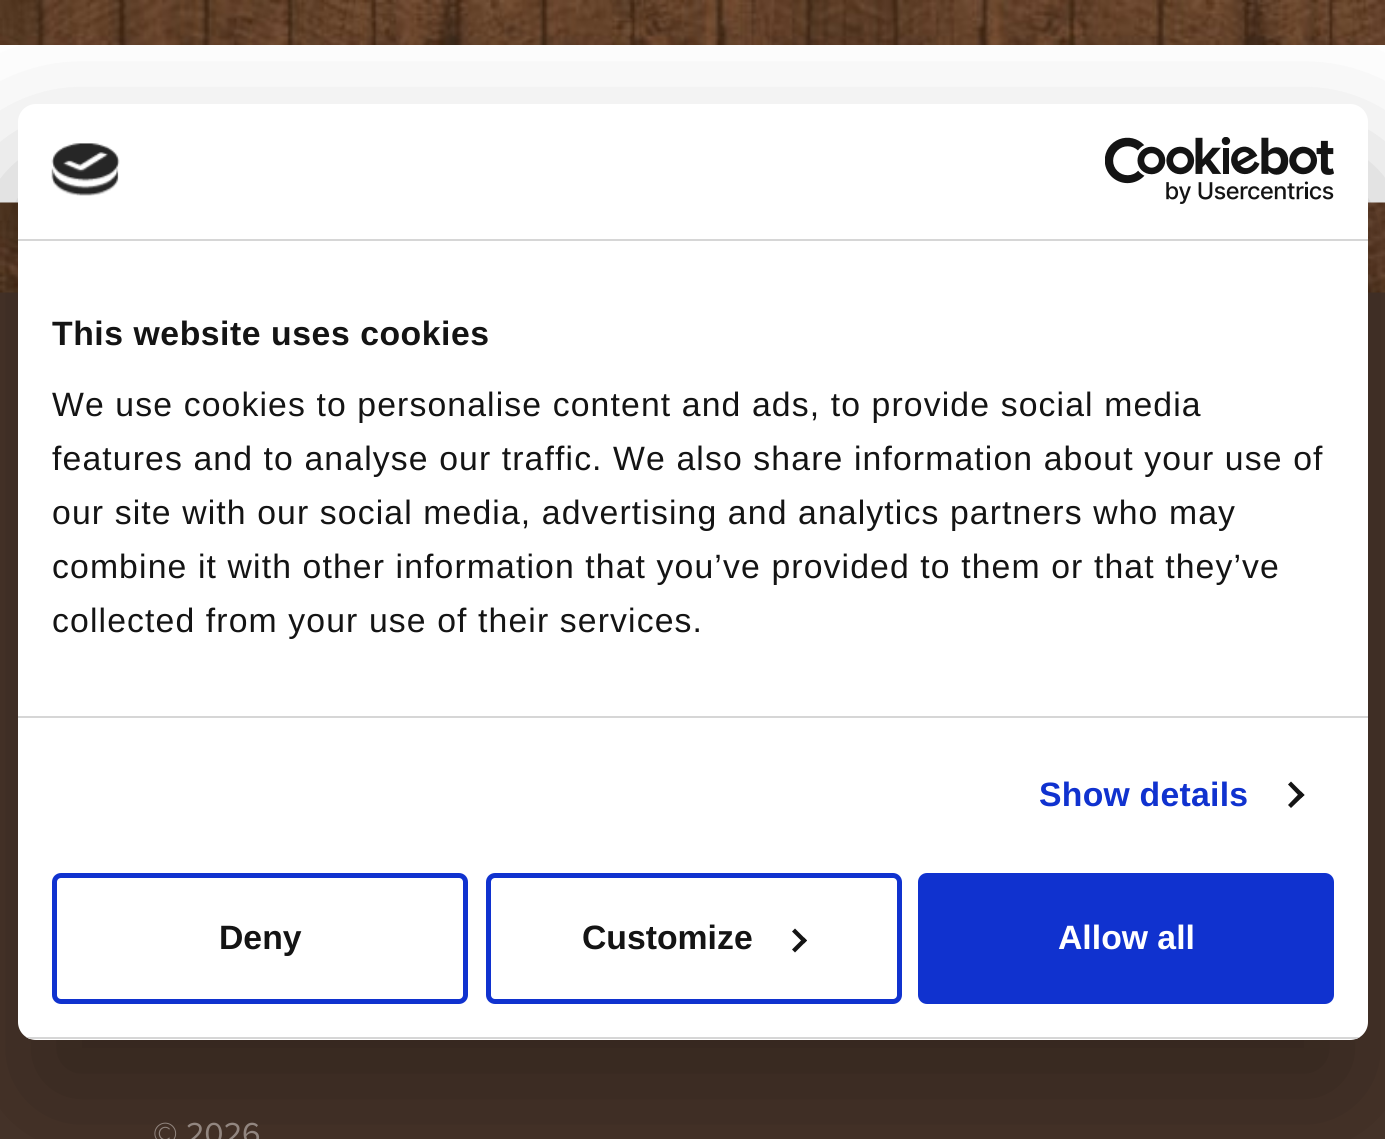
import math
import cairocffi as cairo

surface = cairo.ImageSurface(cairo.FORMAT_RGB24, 1385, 1139)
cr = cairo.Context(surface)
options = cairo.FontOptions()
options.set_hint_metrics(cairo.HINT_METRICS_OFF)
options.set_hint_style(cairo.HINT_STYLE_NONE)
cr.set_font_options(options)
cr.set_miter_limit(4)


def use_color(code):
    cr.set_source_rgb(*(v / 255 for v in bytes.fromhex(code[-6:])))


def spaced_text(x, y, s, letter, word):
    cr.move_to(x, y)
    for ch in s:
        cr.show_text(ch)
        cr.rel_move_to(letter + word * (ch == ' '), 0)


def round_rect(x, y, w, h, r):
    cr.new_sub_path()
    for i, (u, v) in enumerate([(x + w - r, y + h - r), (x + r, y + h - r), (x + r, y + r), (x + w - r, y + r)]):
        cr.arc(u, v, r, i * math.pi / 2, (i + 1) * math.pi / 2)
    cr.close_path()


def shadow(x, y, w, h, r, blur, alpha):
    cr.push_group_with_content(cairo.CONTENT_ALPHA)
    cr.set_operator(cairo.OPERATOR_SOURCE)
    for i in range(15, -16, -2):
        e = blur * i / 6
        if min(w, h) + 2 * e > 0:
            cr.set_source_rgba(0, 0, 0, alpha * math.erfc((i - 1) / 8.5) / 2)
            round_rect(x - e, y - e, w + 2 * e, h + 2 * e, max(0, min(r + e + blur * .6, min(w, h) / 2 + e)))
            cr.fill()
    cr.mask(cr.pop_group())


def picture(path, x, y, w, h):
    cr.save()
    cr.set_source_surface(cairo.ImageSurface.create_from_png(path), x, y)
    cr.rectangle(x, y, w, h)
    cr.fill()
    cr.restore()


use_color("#ffffff")
cr.paint()
picture("img1.png", 0, 0, 1385, 45)
use_color("#4a362b")
cr.rectangle(0, 292, 1385, 847)
cr.fill()
picture("img4.png", 0, 202, 1385, 91)
use_color("#000000")
shadow(18, 176, 1350, 936, 18, 76.5, 0.3)
use_color("#ffffff")
round_rect(18, 104, 1350, 936, 18)
cr.fill()
use_color("#d6d6d6")
cr.rectangle(18, 239, 1350, 2)
cr.fill()
picture("img2.png", 51, 143, 69, 53)
picture("img3.png", 1105, 137, 229, 67)
cr.rectangle(18, 716, 1350, 2)
cr.fill()
cr.select_font_face("Liberation Sans", cairo.FONT_SLANT_NORMAL, cairo.FONT_WEIGHT_BOLD)
cr.set_font_size(33.75)
use_color("#141414")
spaced_text(52, 345, "This website uses cookies", 0.55, 0)
cr.select_font_face("Liberation Sans")
spaced_text(52, 416, "We use cookies to personalise content and ads, to provide social media", 1.12, 0)
spaced_text(52, 470, "features and to analyse our traffic. We also share information about your use of", 1.12, 0)
spaced_text(52, 524, "our site with our social media, advertising and analytics partners who may", 1.12, 0)
spaced_text(52, 578, "combine it with other information that you’ve provided to them or that they’ve", 1.12, 0)
spaced_text(52, 632, "collected from your use of their services.", 1.12, 0)
cr.select_font_face("Liberation Sans", cairo.FONT_SLANT_NORMAL, cairo.FONT_WEIGHT_BOLD)
use_color("#1032cf")
spaced_text(1039, 806, "Show details", 0.25, 0)
use_color("#141414")
cr.new_path()
cr.move_to(1291, 781.5)
cr.line_to(1304.5, 795)
cr.line_to(1301, 798)
cr.line_to(1288, 784.5)
cr.close_path()
cr.fill()
cr.new_path()
cr.move_to(1301, 791.5)
cr.line_to(1304.5, 795)
cr.line_to(1291, 808)
cr.line_to(1288, 805)
cr.close_path()
cr.fill()
cr.save()
round_rect(18, 104, 1350, 936, 18)
cr.clip()
use_color("#d6d6d6")
cr.rectangle(18, 1037, 1350, 2)
cr.fill()
cr.restore()
round_rect(54.5, 875.5, 411, 126, 6.5)
use_color("#1032cf")
cr.set_line_width(5)
cr.stroke()
use_color("#141414")
cr.move_to(219, 949)
cr.show_text("Deny")
round_rect(488.5, 875.5, 411, 126, 6.5)
use_color("#1032cf")
cr.stroke()
use_color("#141414")
cr.move_to(582, 949)
cr.show_text("Customize")
cr.new_path()
cr.move_to(795, 928.5)
cr.line_to(807, 940.5)
cr.line_to(804, 943.5)
cr.line_to(792, 931.5)
cr.close_path()
cr.fill()
cr.new_path()
cr.move_to(804, 937.5)
cr.line_to(807, 940.5)
cr.line_to(795, 952.5)
cr.line_to(792, 949.5)
cr.close_path()
cr.fill()
use_color("#1032cf")
round_rect(920.5, 875.5, 411, 126, 6.5)
cr.fill_preserve()
cr.stroke()
use_color("#ffffff")
cr.move_to(1058, 949)
cr.show_text("Allow all")
cr.select_font_face("Proxima Nova")
cr.set_font_size(31.5)
use_color("#928680")
cr.move_to(153, 1144)
cr.show_text("© 2026")
surface.write_to_png("result.png")
